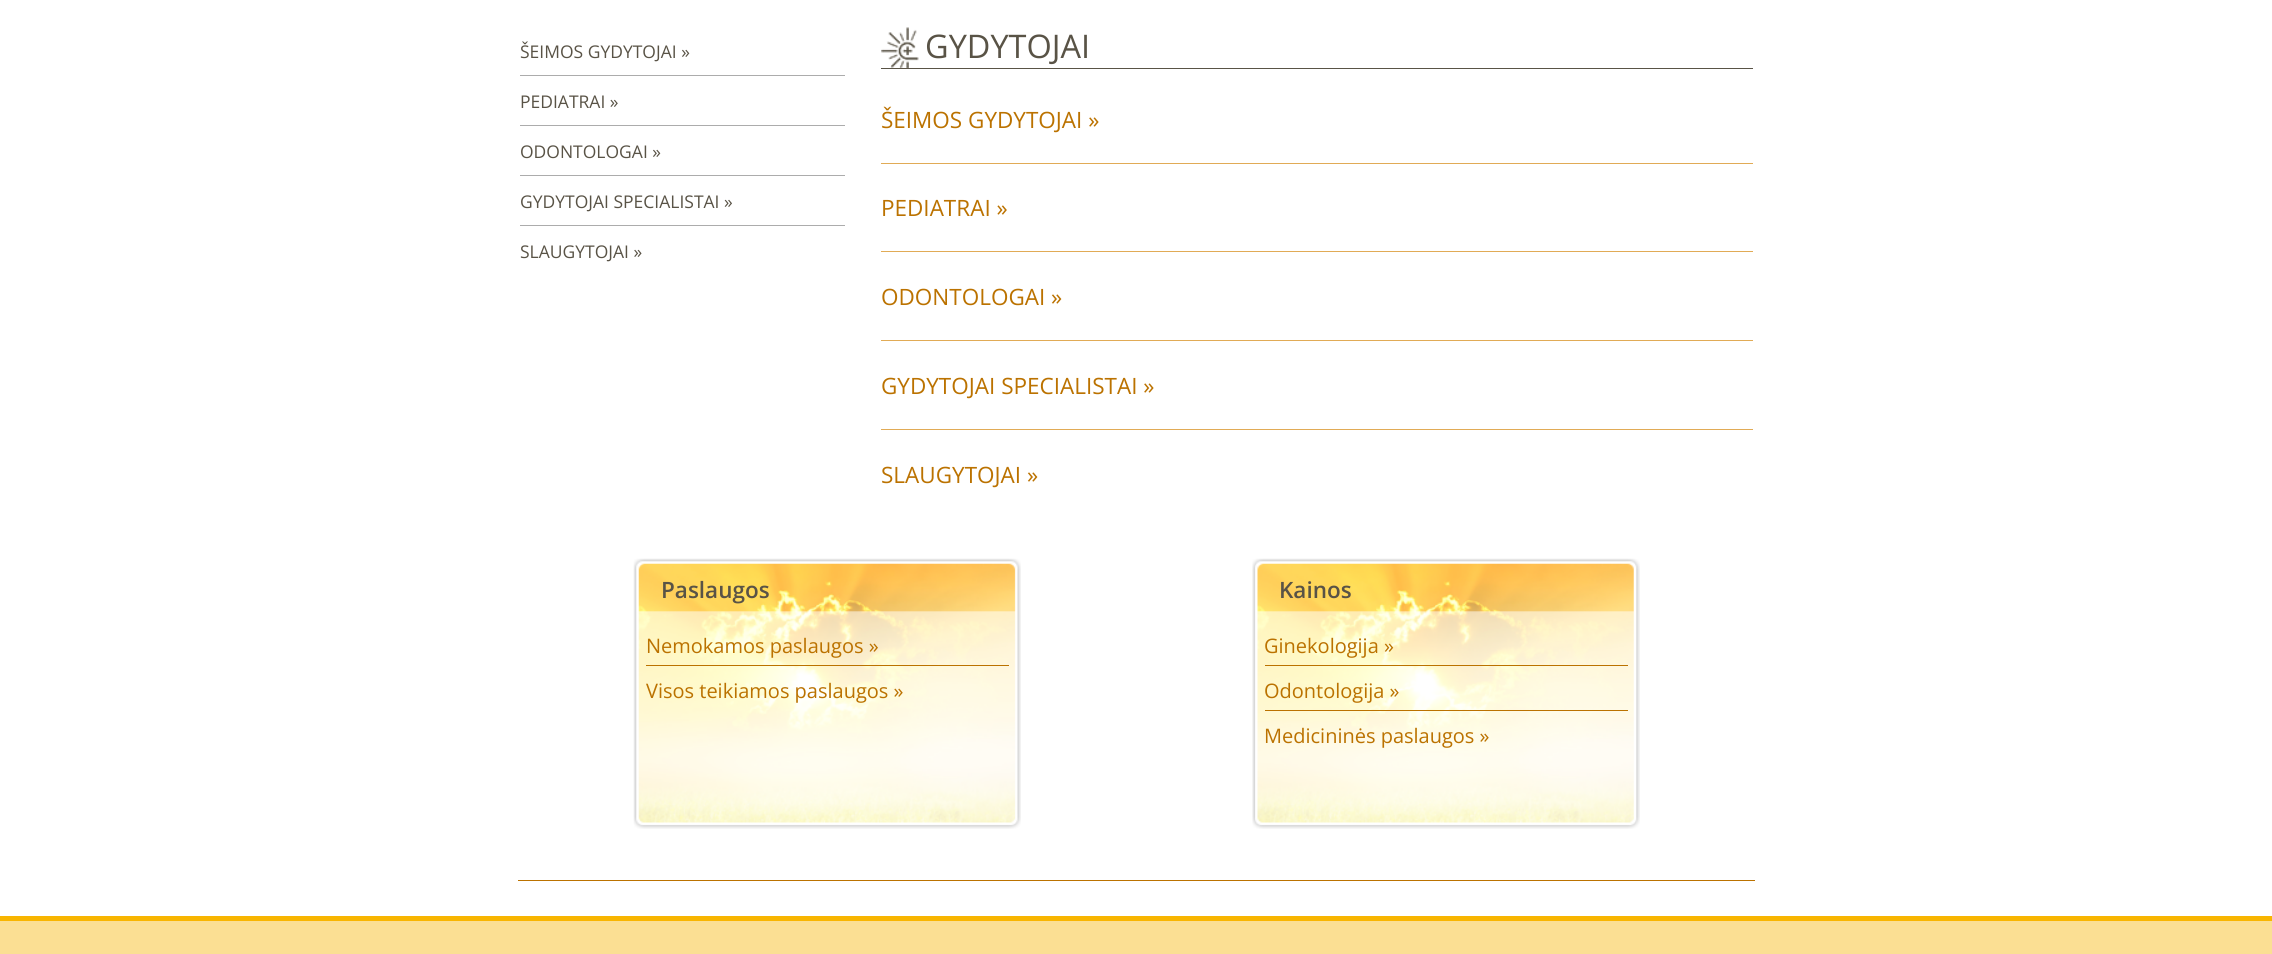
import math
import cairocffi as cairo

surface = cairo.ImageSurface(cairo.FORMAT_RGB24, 2272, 954)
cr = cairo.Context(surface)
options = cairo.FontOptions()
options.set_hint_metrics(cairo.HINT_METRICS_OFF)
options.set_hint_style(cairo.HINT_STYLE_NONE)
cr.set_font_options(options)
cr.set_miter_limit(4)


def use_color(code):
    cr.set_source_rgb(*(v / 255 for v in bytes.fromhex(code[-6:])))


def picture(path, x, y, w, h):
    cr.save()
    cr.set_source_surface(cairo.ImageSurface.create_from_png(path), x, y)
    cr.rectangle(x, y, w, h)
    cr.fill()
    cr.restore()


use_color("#ffffff")
cr.paint()
cr.select_font_face("Open Sans")
cr.set_font_size(17.5)
use_color("#595346")
cr.move_to(520, 58)
cr.show_text("ŠEIMOS GYDYTOJAI »")
use_color("#acacac")
cr.rectangle(520, 75, 325, 1)
cr.fill()
use_color("#595346")
cr.move_to(520, 108)
cr.show_text("PEDIATRAI »")
use_color("#acacac")
cr.rectangle(520, 125, 325, 1)
cr.fill()
use_color("#595346")
cr.move_to(520, 158)
cr.show_text("ODONTOLOGAI »")
use_color("#acacac")
cr.rectangle(520, 175, 325, 1)
cr.fill()
use_color("#595346")
cr.move_to(520, 208)
cr.show_text("GYDYTOJAI SPECIALISTAI »")
use_color("#acacac")
cr.rectangle(520, 225, 325, 1)
cr.fill()
use_color("#595346")
cr.move_to(520, 258)
cr.show_text("SLAUGYTOJAI »")
picture("img1.png", 881, 27, 38, 41)
cr.rectangle(881, 68, 872, 1)
cr.fill()
cr.set_font_size(32.5)
cr.move_to(925, 58)
cr.show_text("GYDYTOJAI")
cr.set_font_size(22.5)
use_color("#bb7200")
cr.move_to(881, 128)
cr.show_text("ŠEIMOS GYDYTOJAI »")
use_color("#e1ab56")
cr.rectangle(881, 163, 872, 1)
cr.fill()
use_color("#bb7200")
cr.move_to(881, 216)
cr.show_text("PEDIATRAI »")
use_color("#e1ab56")
cr.rectangle(881, 251, 872, 1)
cr.fill()
use_color("#bb7200")
cr.move_to(881, 305)
cr.show_text("ODONTOLOGAI »")
use_color("#e1ab56")
cr.rectangle(881, 340, 872, 1)
cr.fill()
use_color("#bb7200")
cr.move_to(881, 394)
cr.show_text("GYDYTOJAI SPECIALISTAI »")
use_color("#e1ab56")
cr.rectangle(881, 429, 872, 1)
cr.fill()
use_color("#bb7200")
cr.move_to(881, 483)
cr.show_text("SLAUGYTOJAI »")
picture("img2.png", 633, 558, 388, 271)
cr.select_font_face("Open Sans SemiBold")
use_color("#595346")
cr.move_to(661, 598)
cr.show_text("Paslaugos")
cr.select_font_face("Open Sans")
cr.set_font_size(20)
use_color("#bb7200")
cr.move_to(646, 653)
cr.show_text("Nemokamos paslaugos »")
cr.rectangle(646, 665, 363, 1)
cr.fill()
cr.move_to(646, 698)
cr.show_text("Visos teikiamos paslaugos »")
picture("img3.png", 1252, 558, 388, 271)
cr.select_font_face("Open Sans SemiBold")
cr.set_font_size(22.5)
use_color("#595346")
cr.move_to(1279, 598)
cr.show_text("Kainos")
cr.select_font_face("Open Sans")
cr.set_font_size(20)
use_color("#bb7200")
cr.move_to(1264, 653)
cr.show_text("Ginekologija »")
cr.rectangle(1265, 665, 363, 1)
cr.fill()
cr.move_to(1264, 698)
cr.show_text("Odontologija »")
cr.rectangle(1265, 710, 363, 1)
cr.fill()
cr.move_to(1264, 743)
cr.show_text("Medicininės paslaugos »")
cr.rectangle(518, 880, 1237, 1)
cr.fill()
use_color("#f8b500")
cr.rectangle(0, 916, 2272, 5)
cr.fill()
use_color("#fbdf93")
cr.rectangle(0, 921, 2272, 33)
cr.fill()
surface.write_to_png("result.png")
